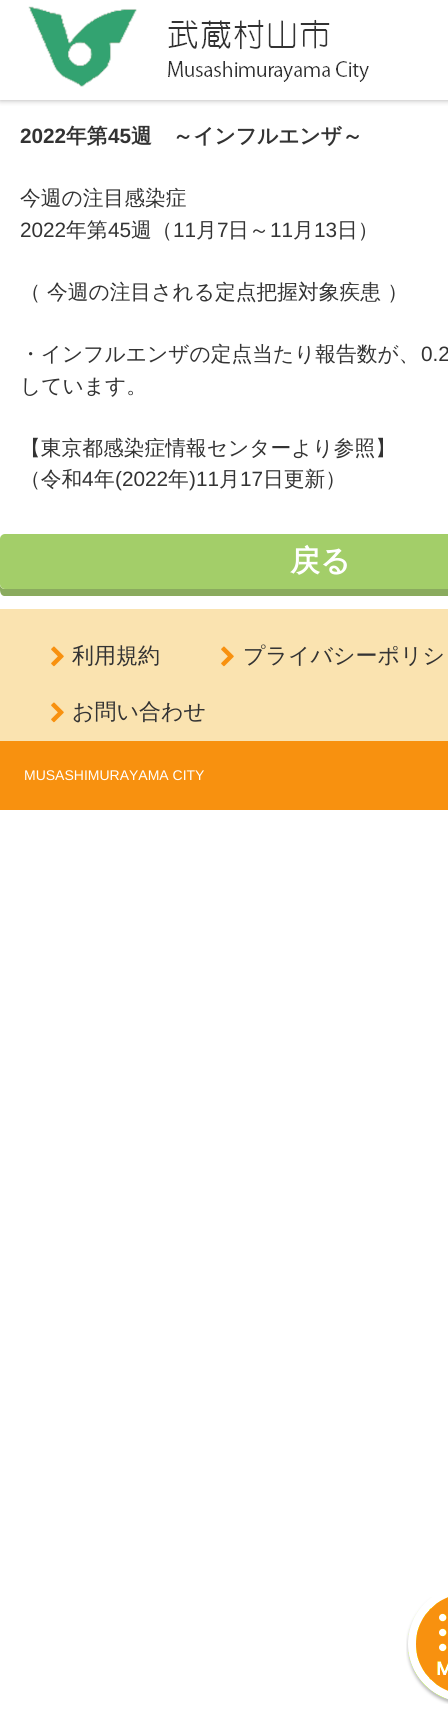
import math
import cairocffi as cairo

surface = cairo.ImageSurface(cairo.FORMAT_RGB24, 448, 1725)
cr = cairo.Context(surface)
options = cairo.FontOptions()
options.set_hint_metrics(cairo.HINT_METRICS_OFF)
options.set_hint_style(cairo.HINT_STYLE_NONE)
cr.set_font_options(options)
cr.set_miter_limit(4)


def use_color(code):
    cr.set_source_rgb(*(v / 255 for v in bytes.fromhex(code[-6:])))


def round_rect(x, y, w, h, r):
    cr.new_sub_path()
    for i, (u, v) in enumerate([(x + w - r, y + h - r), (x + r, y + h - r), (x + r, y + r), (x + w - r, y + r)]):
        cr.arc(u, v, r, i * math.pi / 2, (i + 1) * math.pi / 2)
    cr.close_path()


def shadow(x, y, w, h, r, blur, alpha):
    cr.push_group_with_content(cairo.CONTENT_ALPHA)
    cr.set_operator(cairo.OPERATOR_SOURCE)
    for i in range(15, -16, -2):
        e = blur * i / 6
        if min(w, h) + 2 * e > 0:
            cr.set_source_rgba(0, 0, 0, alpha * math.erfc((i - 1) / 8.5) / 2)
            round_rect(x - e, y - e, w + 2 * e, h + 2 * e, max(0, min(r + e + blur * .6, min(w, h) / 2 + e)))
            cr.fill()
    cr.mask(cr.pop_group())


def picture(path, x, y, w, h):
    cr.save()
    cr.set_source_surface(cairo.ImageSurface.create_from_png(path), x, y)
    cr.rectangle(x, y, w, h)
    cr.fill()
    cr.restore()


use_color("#ffffff")
cr.paint()
cr.save()
cr.rectangle(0, 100, 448, 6)
cr.clip()
use_color("#adabab")
shadow(0, 0, 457, 100, 0, 3, 1)
cr.restore()
picture("img1.png", 28, 6, 341, 81)
cr.select_font_face("Liberation Sans", cairo.FONT_SLANT_NORMAL, cairo.FONT_WEIGHT_BOLD)
cr.set_font_size(20.75)
use_color("#333333")
cr.move_to(20, 143)
cr.show_text("2022")
cr.select_font_face("WenQuanYi Zen Hei", cairo.FONT_SLANT_NORMAL, cairo.FONT_WEIGHT_BOLD)
cr.move_to(66, 143)
cr.show_text("年第")
cr.select_font_face("Liberation Sans", cairo.FONT_SLANT_NORMAL, cairo.FONT_WEIGHT_BOLD)
cr.move_to(108, 143)
cr.show_text("45")
cr.select_font_face("WenQuanYi Zen Hei", cairo.FONT_SLANT_NORMAL, cairo.FONT_WEIGHT_BOLD)
cr.move_to(131, 143)
cr.show_text("週　～インフルエンザ～")
cr.select_font_face("WenQuanYi Zen Hei Medium")
cr.move_to(20, 205)
cr.show_text("今週の注目感染症")
cr.select_font_face("Liberation Sans")
cr.move_to(20, 237)
cr.show_text("2022")
cr.select_font_face("WenQuanYi Zen Hei Medium")
cr.move_to(66, 237)
cr.show_text("年第")
cr.select_font_face("Liberation Sans")
cr.move_to(108, 237)
cr.show_text("45")
cr.select_font_face("WenQuanYi Zen Hei Medium")
cr.move_to(131, 237)
cr.show_text("週（")
cr.select_font_face("Liberation Sans")
cr.move_to(173, 237)
cr.show_text("11")
cr.select_font_face("WenQuanYi Zen Hei Medium")
cr.move_to(196, 237)
cr.show_text("月")
cr.select_font_face("Liberation Sans")
cr.move_to(217, 237)
cr.show_text("7")
cr.select_font_face("WenQuanYi Zen Hei Medium")
cr.move_to(228, 237)
cr.show_text("日～")
cr.select_font_face("Liberation Sans")
cr.move_to(270, 237)
cr.show_text("11")
cr.select_font_face("WenQuanYi Zen Hei Medium")
cr.move_to(293, 237)
cr.show_text("月")
cr.select_font_face("Liberation Sans")
cr.move_to(314, 237)
cr.show_text("13")
cr.select_font_face("WenQuanYi Zen Hei Medium")
cr.move_to(337, 237)
cr.show_text("日）")
cr.move_to(20, 299)
cr.show_text("（ 今週の注目される定点把握対象疾患 ）")
cr.move_to(20, 361)
cr.show_text("・インフルエンザの定点当たり報告数が、")
cr.select_font_face("Liberation Sans")
cr.move_to(421, 361)
cr.show_text("0.2")
cr.select_font_face("WenQuanYi Zen Hei Medium")
cr.move_to(20, 393)
cr.show_text("しています。")
cr.move_to(20, 455)
cr.show_text("【東京都感染症情報センターより参照】")
cr.move_to(20, 486)
cr.show_text("（令和")
cr.select_font_face("Liberation Sans")
cr.move_to(82, 486)
cr.show_text("4")
cr.select_font_face("WenQuanYi Zen Hei Medium")
cr.move_to(94, 486)
cr.show_text("年")
cr.select_font_face("Liberation Sans")
cr.move_to(115, 486)
cr.show_text("(2022")
cr.select_font_face("WenQuanYi Zen Hei Medium")
cr.move_to(168, 486)
cr.show_text("年")
cr.select_font_face("Liberation Sans")
cr.move_to(189, 486)
cr.show_text(")11")
cr.select_font_face("WenQuanYi Zen Hei Medium")
cr.move_to(219, 486)
cr.show_text("月")
cr.select_font_face("Liberation Sans")
cr.move_to(240, 486)
cr.show_text("17")
cr.select_font_face("WenQuanYi Zen Hei Medium")
cr.move_to(263, 486)
cr.show_text("日更新）")
use_color("#8aab5e")
cr.new_path()
cr.move_to(0, 584)
cr.curve_to(0, 588, -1, 595, 4, 596)
cr.line_to(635, 596)
cr.curve_to(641, 596, 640, 588, 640, 584)
cr.curve_to(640, 587, 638, 589, 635, 589)
cr.line_to(5, 589)
cr.curve_to(2, 589, 0, 587, 0, 584)
cr.close_path()
cr.fill()
use_color("#a3ce69")
round_rect(0, 534, 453, 55, 5)
cr.fill()
cr.select_font_face("WenQuanYi Zen Hei", cairo.FONT_SLANT_NORMAL, cairo.FONT_WEIGHT_BOLD)
cr.set_font_size(30)
use_color("#ffffff")
cr.move_to(290, 571)
cr.show_text("戻る")
use_color("#fae3b0")
cr.rectangle(0, 609, 448, 132)
cr.fill()
picture("img2.png", 51, 646, 13, 21)
cr.select_font_face("WenQuanYi Zen Hei Medium")
cr.set_font_size(22)
use_color("#333333")
cr.move_to(72, 663)
cr.show_text("利用規約")
picture("img2.png", 221, 646, 13, 21)
cr.move_to(243, 663)
cr.show_text("プライバシーポリシ")
picture("img2.png", 51, 702, 13, 21)
cr.move_to(72, 719)
cr.show_text("お問い合わせ")
use_color("#f8910f")
cr.rectangle(0, 741, 448, 69)
cr.fill()
cr.select_font_face("Liberation Sans")
cr.set_font_size(14)
use_color("#ffffff")
cr.move_to(24, 780)
cr.show_text("MUSASHIMURAYAMA CITY")
picture("img3.png", 406, 1597, 42, 107)
surface.write_to_png("result.png")
